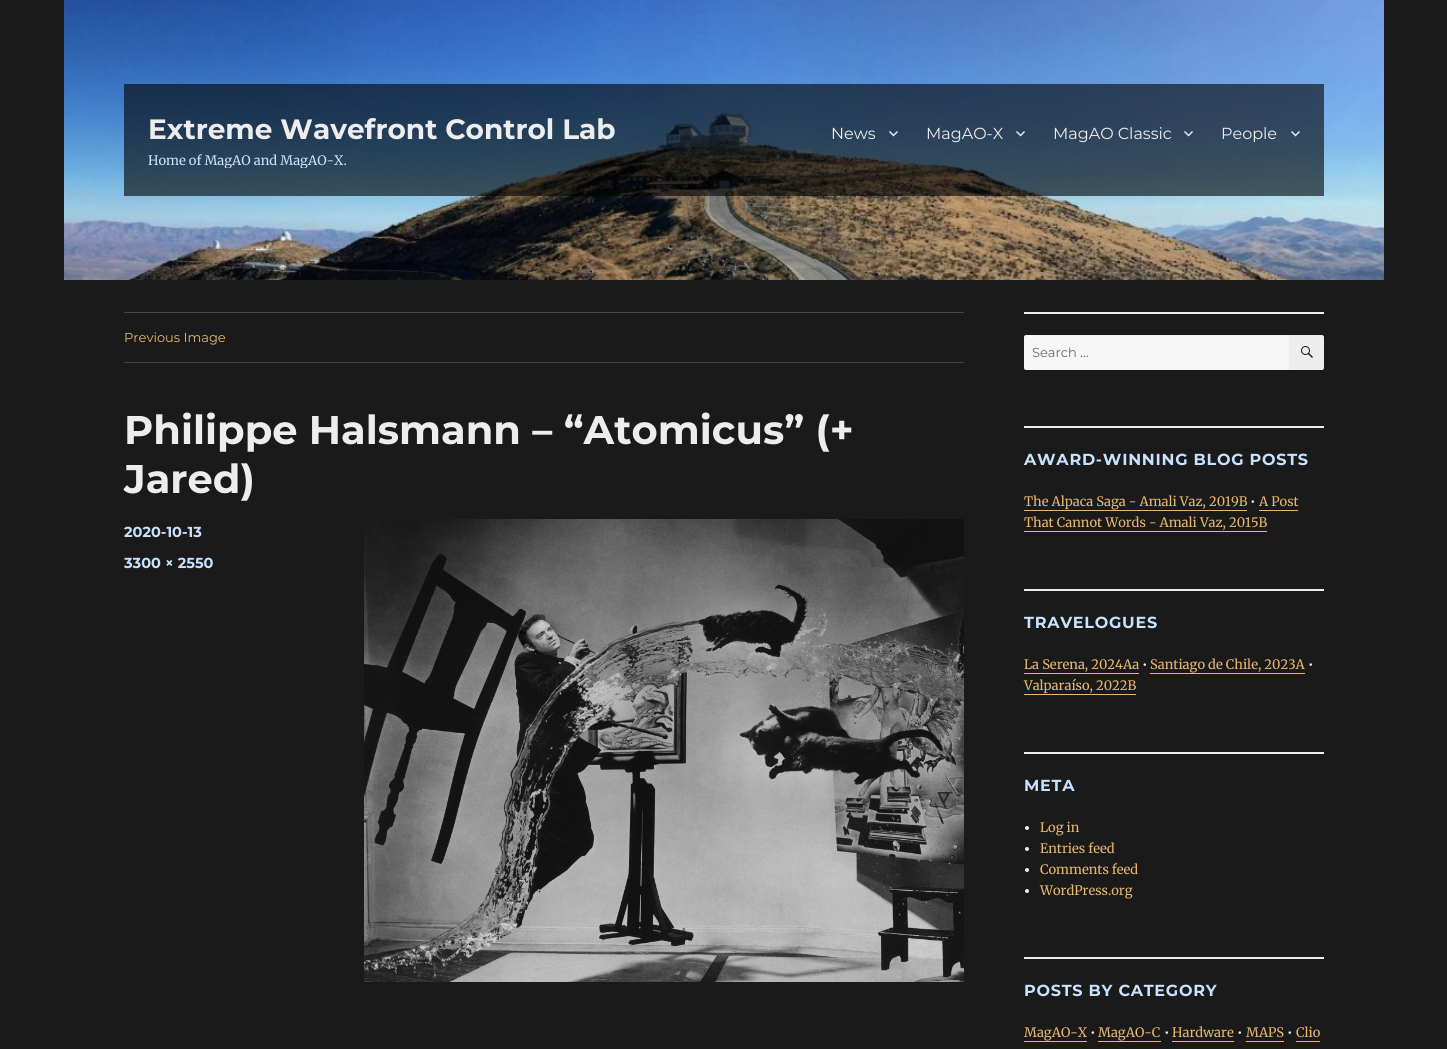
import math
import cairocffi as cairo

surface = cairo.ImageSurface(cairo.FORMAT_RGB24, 1447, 1049)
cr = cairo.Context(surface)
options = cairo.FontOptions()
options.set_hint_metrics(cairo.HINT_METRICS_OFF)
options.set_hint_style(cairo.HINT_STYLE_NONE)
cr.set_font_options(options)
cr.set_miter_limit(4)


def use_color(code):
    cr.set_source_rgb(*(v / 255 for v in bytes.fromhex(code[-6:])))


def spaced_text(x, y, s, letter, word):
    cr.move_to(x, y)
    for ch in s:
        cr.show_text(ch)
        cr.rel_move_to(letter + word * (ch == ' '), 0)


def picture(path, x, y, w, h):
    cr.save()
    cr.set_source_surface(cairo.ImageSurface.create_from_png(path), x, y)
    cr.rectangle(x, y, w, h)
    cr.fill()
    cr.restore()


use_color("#1a1a1a")
cr.paint()
picture("img1.png", 64, 0, 1320, 280)
cr.set_source_rgba(0, 0, 0, 0.6)
cr.rectangle(124, 84, 1200, 112)
cr.fill()
cr.select_font_face("Montserrat", cairo.FONT_SLANT_NORMAL, cairo.FONT_WEIGHT_BOLD)
cr.set_font_size(28)
use_color("#ededed")
cr.move_to(148, 139)
cr.show_text("Extreme Wavefront Control Lab")
cr.save()
cr.rectangle(148, 112, 467, 56)
cr.clip()
cr.select_font_face("Merriweather")
cr.set_font_size(13)
use_color("#c6e2ff")
cr.move_to(148, 165)
cr.show_text("Home of MagAO and MagAO-X.")
cr.restore()
cr.select_font_face("Montserrat")
cr.set_font_size(16)
cr.move_to(831, 139)
cr.show_text("News")
picture("img2.png", 889, 131, 9, 6)
cr.move_to(926, 139)
cr.show_text("MagAO-X")
picture("img3.png", 1016, 131, 9, 6)
cr.move_to(1053, 139)
cr.show_text("MagAO Classic")
picture("img4.png", 1184, 131, 9, 6)
cr.move_to(1221, 139)
cr.show_text("People")
picture("img5.png", 1291, 131, 9, 6)
use_color("#444444")
cr.rectangle(124, 312, 840, 1)
cr.fill()
cr.rectangle(124, 362, 840, 1)
cr.fill()
cr.set_font_size(13)
use_color("#e8b76f")
cr.move_to(124, 342)
cr.show_text("Previous Image")
cr.select_font_face("Montserrat", cairo.FONT_SLANT_NORMAL, cairo.FONT_WEIGHT_BOLD)
cr.set_font_size(40)
use_color("#ededed")
cr.move_to(124, 444)
cr.show_text("Philippe Halsmann – “Atomicus” (+")
cr.move_to(124, 493)
cr.show_text("Jared)")
cr.set_font_size(14.5)
use_color("#c6e2ff")
cr.move_to(124, 537)
cr.show_text("2020-10-13")
cr.move_to(124, 568)
cr.show_text("3300 × 2550")
picture("img6.png", 364, 519, 600, 463)
use_color("#ededed")
cr.rectangle(1024, 312, 300, 2)
cr.fill()
use_color("#f7f7f7")
cr.new_path()
cr.move_to(1026, 335)
cr.line_to(1289, 335)
cr.line_to(1289, 370)
cr.line_to(1026, 370)
cr.curve_to(1025, 370, 1024, 369, 1024, 368)
cr.line_to(1024, 337)
cr.curve_to(1024, 336, 1025, 335, 1026, 335)
cr.close_path()
cr.fill()
cr.new_path()
cr.move_to(1026, 335.5)
cr.line_to(1288.5, 335.5)
cr.line_to(1288.5, 369.5)
cr.line_to(1026, 369.5)
cr.curve_to(1025, 369.5, 1024.5, 369, 1024.5, 368)
cr.line_to(1024.5, 337)
cr.curve_to(1024.5, 336, 1025, 335.5, 1026, 335.5)
cr.close_path()
cr.set_source_rgba(0.929, 0.929, 0.929, 0.2)
cr.set_line_width(1)
cr.stroke()
cr.select_font_face("Montserrat")
cr.set_font_size(13)
use_color("#686868")
cr.move_to(1032, 357)
cr.show_text("Search …")
use_color("#ededed")
cr.new_path()
cr.move_to(1289, 335)
cr.line_to(1322, 335)
cr.curve_to(1323, 335, 1324, 336, 1324, 337)
cr.line_to(1324, 368)
cr.curve_to(1324, 369, 1323, 370, 1322, 370)
cr.line_to(1289, 370)
cr.close_path()
cr.fill()
picture("img7.png", 1301, 346, 12, 12)
cr.rectangle(1024, 426, 300, 2)
cr.fill()
cr.select_font_face("Montserrat", cairo.FONT_SLANT_NORMAL, cairo.FONT_WEIGHT_BOLD)
cr.set_font_size(16)
use_color("#c6e2ff")
spaced_text(1024, 465, "AWARD-WINNING BLOG POSTS", 0.75, 0)
cr.select_font_face("Merriweather")
cr.set_font_size(13)
use_color("#e8b76f")
cr.move_to(1024, 506)
cr.show_text("The Alpaca Saga - Amali Vaz, 2019B")
cr.rectangle(1024, 510, 223, 1)
cr.fill()
use_color("#ededed")
cr.move_to(1250, 506)
cr.show_text("•")
use_color("#e8b76f")
cr.move_to(1259, 506)
cr.show_text("A Post")
cr.rectangle(1259, 510, 39, 1)
cr.fill()
cr.move_to(1024, 527)
cr.show_text("That Cannot Words - Amali Vaz, 2015B")
cr.rectangle(1024, 531, 243, 1)
cr.fill()
use_color("#ededed")
cr.rectangle(1024, 589, 300, 2)
cr.fill()
cr.select_font_face("Montserrat", cairo.FONT_SLANT_NORMAL, cairo.FONT_WEIGHT_BOLD)
cr.set_font_size(16)
use_color("#c6e2ff")
spaced_text(1024, 628, "TRAVELOGUES", 0.75, 0)
cr.select_font_face("Merriweather")
cr.set_font_size(13)
use_color("#e8b76f")
cr.move_to(1024, 669)
cr.show_text("La Serena, 2024Aa")
cr.rectangle(1024, 673, 115, 1)
cr.fill()
use_color("#ededed")
cr.move_to(1142, 669)
cr.show_text("•")
use_color("#e8b76f")
cr.move_to(1150, 669)
cr.show_text("Santiago de Chile, 2023A")
cr.rectangle(1150, 673, 155, 1)
cr.fill()
use_color("#ededed")
cr.move_to(1308, 669)
cr.show_text("•")
use_color("#e8b76f")
cr.move_to(1024, 690)
cr.show_text("Valparaíso, 2022B")
cr.rectangle(1024, 694, 112, 1)
cr.fill()
use_color("#ededed")
cr.rectangle(1024, 752, 300, 2)
cr.fill()
cr.select_font_face("Montserrat", cairo.FONT_SLANT_NORMAL, cairo.FONT_WEIGHT_BOLD)
cr.set_font_size(16)
use_color("#c6e2ff")
spaced_text(1024, 791, "META", 0.75, 0)
use_color("#ededed")
cr.new_path()
cr.arc(1027, 828, 2, 0, 2 * math.pi)
cr.fill()
cr.select_font_face("Merriweather")
cr.set_font_size(13)
use_color("#e8b76f")
cr.move_to(1040, 832)
cr.show_text("Log in")
use_color("#ededed")
cr.new_path()
cr.arc(1027, 849, 2, 0, 2 * math.pi)
cr.fill()
use_color("#e8b76f")
cr.move_to(1040, 853)
cr.show_text("Entries feed")
use_color("#ededed")
cr.new_path()
cr.arc(1027, 870, 2, 0, 2 * math.pi)
cr.fill()
use_color("#e8b76f")
cr.move_to(1040, 874)
cr.show_text("Comments feed")
use_color("#ededed")
cr.new_path()
cr.arc(1027, 891, 2, 0, 2 * math.pi)
cr.fill()
use_color("#e8b76f")
cr.move_to(1040, 895)
cr.show_text("WordPress.org")
use_color("#ededed")
cr.rectangle(1024, 957, 300, 2)
cr.fill()
cr.select_font_face("Montserrat", cairo.FONT_SLANT_NORMAL, cairo.FONT_WEIGHT_BOLD)
cr.set_font_size(16)
use_color("#c6e2ff")
spaced_text(1024, 996, "POSTS BY CATEGORY", 0.75, 0)
cr.select_font_face("Merriweather")
cr.set_font_size(13)
use_color("#e8b76f")
cr.move_to(1024, 1037)
cr.show_text("MagAO-X")
cr.rectangle(1024, 1041, 63, 1)
cr.fill()
use_color("#ededed")
cr.move_to(1090, 1037)
cr.show_text("•")
use_color("#e8b76f")
cr.move_to(1098, 1037)
cr.show_text("MagAO-C")
cr.rectangle(1098, 1041, 63, 1)
cr.fill()
use_color("#ededed")
cr.move_to(1164, 1037)
cr.show_text("•")
use_color("#e8b76f")
cr.move_to(1172, 1037)
cr.show_text("Hardware")
cr.rectangle(1172, 1041, 62, 1)
cr.fill()
use_color("#ededed")
cr.move_to(1237, 1037)
cr.show_text("•")
use_color("#e8b76f")
cr.move_to(1246, 1037)
cr.show_text("MAPS")
cr.rectangle(1246, 1041, 38, 1)
cr.fill()
use_color("#ededed")
cr.move_to(1287, 1037)
cr.show_text("•")
use_color("#e8b76f")
cr.move_to(1296, 1037)
cr.show_text("Clio")
cr.rectangle(1296, 1041, 24, 1)
cr.fill()
surface.write_to_png("result.png")
